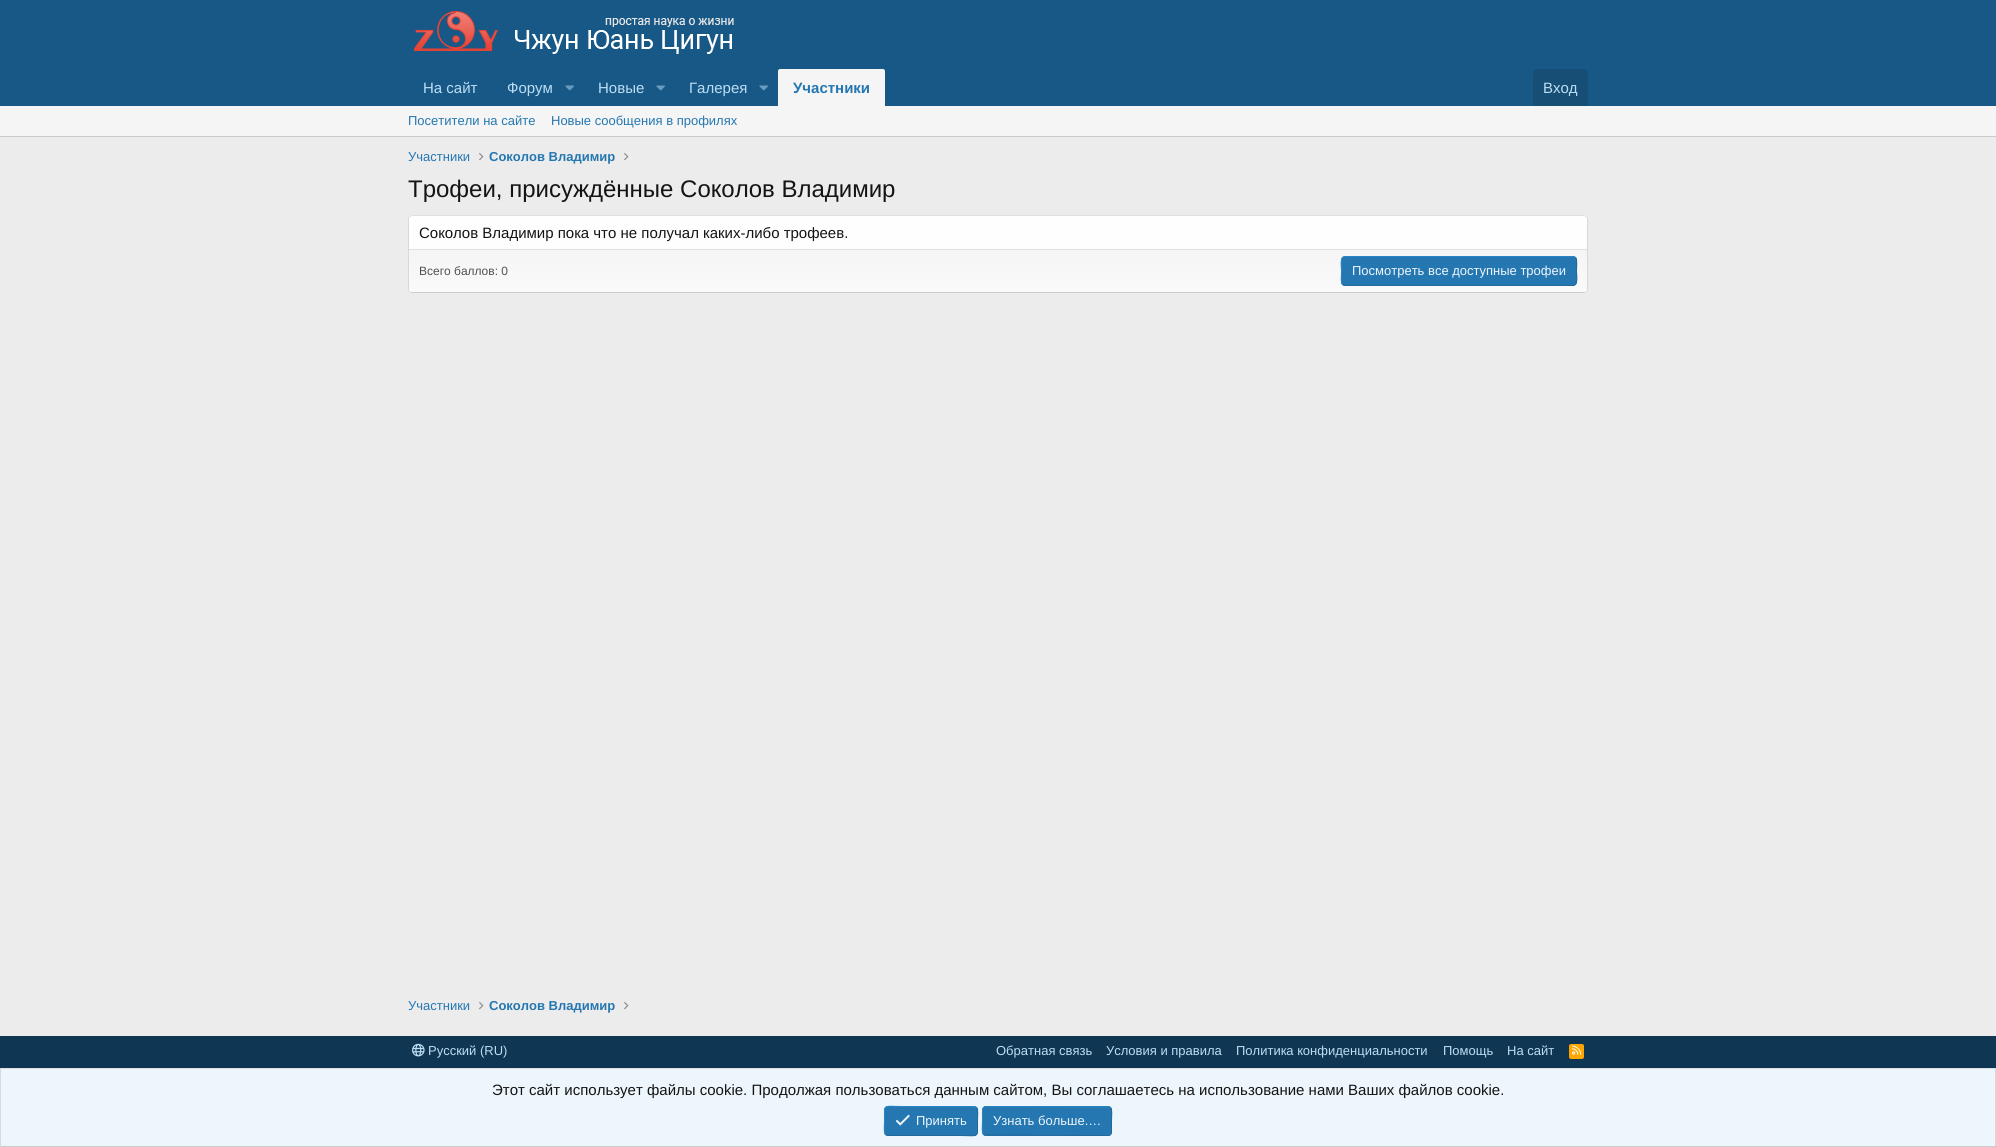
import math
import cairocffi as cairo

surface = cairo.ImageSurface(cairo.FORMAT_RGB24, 1996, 1147)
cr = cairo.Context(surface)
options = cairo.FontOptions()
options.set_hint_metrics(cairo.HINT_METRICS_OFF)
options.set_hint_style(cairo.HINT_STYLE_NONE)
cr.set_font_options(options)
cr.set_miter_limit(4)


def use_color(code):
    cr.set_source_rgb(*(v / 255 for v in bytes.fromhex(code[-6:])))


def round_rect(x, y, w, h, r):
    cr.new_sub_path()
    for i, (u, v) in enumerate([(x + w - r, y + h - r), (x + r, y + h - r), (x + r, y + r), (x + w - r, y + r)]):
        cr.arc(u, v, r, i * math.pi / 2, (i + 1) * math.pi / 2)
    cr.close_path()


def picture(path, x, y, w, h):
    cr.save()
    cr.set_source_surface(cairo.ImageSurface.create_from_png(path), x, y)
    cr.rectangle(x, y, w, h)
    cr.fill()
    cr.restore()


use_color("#ececec")
cr.paint()
use_color("#185886")
cr.rectangle(0, 0, 1996, 106)
cr.fill()
picture("img1.png", 414, 11, 320, 43)
cr.select_font_face("Liberation Sans")
cr.set_font_size(15)
use_color("#bcdef5")
cr.move_to(423, 93)
cr.show_text("На сайт")
cr.move_to(507, 93)
cr.show_text("Форум")
picture("img2.png", 565, 85, 9, 6)
cr.move_to(598, 93)
cr.show_text("Новые")
picture("img2.png", 656, 85, 9, 6)
cr.move_to(689, 93)
cr.show_text("Галерея")
picture("img2.png", 759, 85, 9, 6)
use_color("#f5f5f5")
cr.new_path()
cr.move_to(780, 69)
cr.line_to(883, 69)
cr.curve_to(884, 69, 885, 70, 885, 71)
cr.line_to(885, 106)
cr.line_to(778, 106)
cr.line_to(778, 71)
cr.curve_to(778, 70, 779, 69, 780, 69)
cr.close_path()
cr.fill()
cr.select_font_face("Liberation Sans", cairo.FONT_SLANT_NORMAL, cairo.FONT_WEIGHT_BOLD)
use_color("#2577b1")
cr.move_to(793, 93)
cr.show_text("Участники")
use_color("#174e75")
cr.new_path()
cr.move_to(1537, 69)
cr.line_to(1584, 69)
cr.curve_to(1586, 69, 1588, 71, 1588, 73)
cr.line_to(1588, 106)
cr.line_to(1533, 106)
cr.line_to(1533, 73)
cr.curve_to(1533, 71, 1535, 69, 1537, 69)
cr.close_path()
cr.fill()
cr.select_font_face("Liberation Sans")
use_color("#bcdef5")
cr.move_to(1543, 93)
cr.show_text("Вход")
use_color("#f5f5f5")
cr.rectangle(0, 106, 1996, 30)
cr.fill()
use_color("#cbcbcb")
cr.rectangle(0, 136, 1996, 1)
cr.fill()
cr.set_font_size(13)
use_color("#2577b1")
cr.move_to(408, 125)
cr.show_text("Посетители на сайте")
cr.move_to(551, 125)
cr.show_text("Новые сообщения в профилях")
cr.move_to(408, 161)
cr.show_text("Участники")
picture("img3.png", 479, 153, 5, 8)
cr.select_font_face("Liberation Sans", cairo.FONT_SLANT_NORMAL, cairo.FONT_WEIGHT_BOLD)
cr.move_to(489, 161)
cr.show_text("Соколов Владимир")
picture("img3.png", 624, 153, 5, 8)
cr.select_font_face("Liberation Sans")
cr.set_font_size(24)
use_color("#141414")
cr.move_to(408, 197)
cr.show_text("Трофеи, присуждённые Соколов Владимир")
use_color("#fefefe")
round_rect(408, 215, 1180, 78, 4)
cr.fill()
cr.new_path()
cr.move_to(409.5, 216.5)
cr.line_to(412, 215.5)
cr.line_to(1584, 215.5)
cr.line_to(1586.5, 216.5)
use_color("#dfdfdf")
cr.set_line_width(1)
cr.stroke()
cr.new_path()
cr.move_to(1586.5, 216.5)
cr.curve_to(1587, 217, 1587.5, 218, 1587.5, 219)
cr.line_to(1587.5, 289)
cr.curve_to(1587.5, 290, 1587, 291, 1586.5, 291.5)
use_color("#d8d8d8")
cr.stroke()
cr.new_path()
cr.move_to(1586.5, 291.5)
cr.line_to(1584, 292.5)
cr.line_to(412, 292.5)
cr.line_to(409.5, 291.5)
use_color("#cbcbcb")
cr.stroke()
cr.new_path()
cr.move_to(409.5, 291.5)
cr.curve_to(409, 291, 408.5, 290, 408.5, 289)
cr.line_to(408.5, 219)
cr.curve_to(408.5, 218, 409, 217, 409.5, 216.5)
use_color("#d8d8d8")
cr.stroke()
cr.set_font_size(15)
use_color("#141414")
cr.move_to(419, 238)
cr.show_text("Соколов Владимир пока что не получал каких-либо трофеев.")
gradient = cairo.LinearGradient(998, 250, 998, 292)
gradient.add_color_stop_rgba(0, 0.961, 0.961, 0.961, 1)
gradient.add_color_stop_rgba(1, 0.98, 0.98, 0.98, 1)
cr.set_source(gradient)
cr.new_path()
cr.move_to(409, 250)
cr.line_to(1587, 250)
cr.line_to(1587, 289)
cr.curve_to(1587, 290.5, 1585.5, 292, 1584, 292)
cr.line_to(412, 292)
cr.curve_to(410.5, 292, 409, 290.5, 409, 289)
cr.close_path()
cr.fill()
use_color("#dfdfdf")
cr.rectangle(409, 249, 1178, 1)
cr.fill()
cr.set_font_size(12)
use_color("#505050")
cr.move_to(419, 275)
cr.show_text("Всего баллов: 0")
use_color("#2577b1")
round_rect(1341, 256, 236, 30, 4)
cr.fill()
cr.new_path()
cr.move_to(1575.5, 257.5)
cr.curve_to(1577.5, 259.5, 1576.5, 268, 1576.5, 271)
cr.curve_to(1576.5, 274, 1578, 282.5, 1575, 284.5)
cr.line_to(1573.5, 285.5)
cr.line_to(1345, 285.5)
cr.line_to(1342.5, 284.5)
use_color("#21699c")
cr.stroke()
cr.new_path()
cr.move_to(1342.5, 284.5)
cr.curve_to(1340.5, 282.5, 1341.5, 274, 1341.5, 271)
cr.curve_to(1341.5, 268, 1340, 259.5, 1343, 257.5)
cr.line_to(1344.5, 256.5)
cr.line_to(1573, 256.5)
cr.line_to(1575.5, 257.5)
use_color("#2985c6")
cr.stroke()
cr.set_font_size(13)
use_color("#edf6fd")
cr.move_to(1352, 275)
cr.show_text("Посмотреть все доступные трофеи")
use_color("#2577b1")
cr.move_to(408, 1010)
cr.show_text("Участники")
picture("img3.png", 479, 1002, 5, 8)
cr.select_font_face("Liberation Sans", cairo.FONT_SLANT_NORMAL, cairo.FONT_WEIGHT_BOLD)
cr.move_to(489, 1010)
cr.show_text("Соколов Владимир")
picture("img3.png", 624, 1002, 5, 8)
use_color("#0f3652")
cr.rectangle(0, 1036, 1996, 32)
cr.fill()
picture("img4.png", 412, 1043, 13, 14)
cr.select_font_face("Liberation Sans")
use_color("#bcdef5")
cr.move_to(428, 1055)
cr.show_text("Русский (RU)")
cr.move_to(996, 1055)
cr.show_text("Обратная связь")
cr.move_to(1106, 1055)
cr.show_text("Условия и правила")
cr.move_to(1236, 1055)
cr.show_text("Политика конфиденциальности")
cr.move_to(1443, 1055)
cr.show_text("Помощь")
cr.move_to(1507, 1055)
cr.show_text("На сайт")
use_color("#ffa500")
round_rect(1569, 1044, 15, 15, 2)
cr.fill()
picture("img5.png", 1572, 1045, 10, 10)
use_color("#edf6fd")
cr.rectangle(1, 1069, 1994, 77)
cr.fill()
use_color("#dfdfdf")
cr.rectangle(0, 1068, 1996, 1)
cr.fill()
use_color("#d8d8d8")
cr.rectangle(1995, 1068, 1, 79)
cr.fill()
use_color("#cbcbcb")
cr.rectangle(0, 1146, 1996, 1)
cr.fill()
use_color("#d8d8d8")
cr.rectangle(0, 1068, 1, 79)
cr.fill()
cr.set_font_size(15)
use_color("#141414")
cr.move_to(492, 1095)
cr.show_text("Этот сайт использует файлы cookie. Продолжая пользоваться данным сайтом, Вы соглашаетесь на использование нами Ваших файлов cookie.")
use_color("#2577b1")
round_rect(884, 1106, 94, 30, 4)
cr.fill()
cr.new_path()
cr.move_to(976.5, 1107.5)
cr.curve_to(978.5, 1109.5, 977.5, 1118, 977.5, 1121)
cr.curve_to(977.5, 1139, 979.5, 1135.5, 959.5, 1135.5)
cr.line_to(888, 1135.5)
cr.line_to(885.5, 1134.5)
use_color("#21699c")
cr.stroke()
cr.new_path()
cr.move_to(885.5, 1134.5)
cr.curve_to(883.5, 1132.5, 884.5, 1124, 884.5, 1121)
cr.curve_to(884.5, 1103, 882.5, 1106.5, 902.5, 1106.5)
cr.line_to(974, 1106.5)
cr.line_to(976.5, 1107.5)
use_color("#2985c6")
cr.stroke()
picture("img6.png", 895, 1114, 15, 12)
cr.set_font_size(13)
use_color("#edf6fd")
cr.move_to(916, 1125)
cr.show_text("Принять")
use_color("#2577b1")
round_rect(982, 1106, 130, 30, 4)
cr.fill()
cr.new_path()
cr.move_to(1110.5, 1107.5)
cr.curve_to(1112.5, 1109.5, 1111.5, 1118, 1111.5, 1121)
cr.line_to(1111.5, 1128.5)
cr.curve_to(1111.5, 1131, 1112, 1135.5, 1108, 1135.5)
cr.line_to(984.5, 1135)
cr.line_to(983.5, 1134.5)
use_color("#21699c")
cr.stroke()
cr.new_path()
cr.move_to(983.5, 1134.5)
cr.curve_to(981.5, 1132.5, 982.5, 1124, 982.5, 1121)
cr.line_to(982.5, 1113.5)
cr.curve_to(982.5, 1111, 982, 1106.5, 986, 1106.5)
cr.line_to(1109.5, 1107)
cr.line_to(1110.5, 1107.5)
use_color("#2985c6")
cr.stroke()
use_color("#edf6fd")
cr.move_to(993, 1125)
cr.show_text("Узнать больше.…")
surface.write_to_png("result.png")
